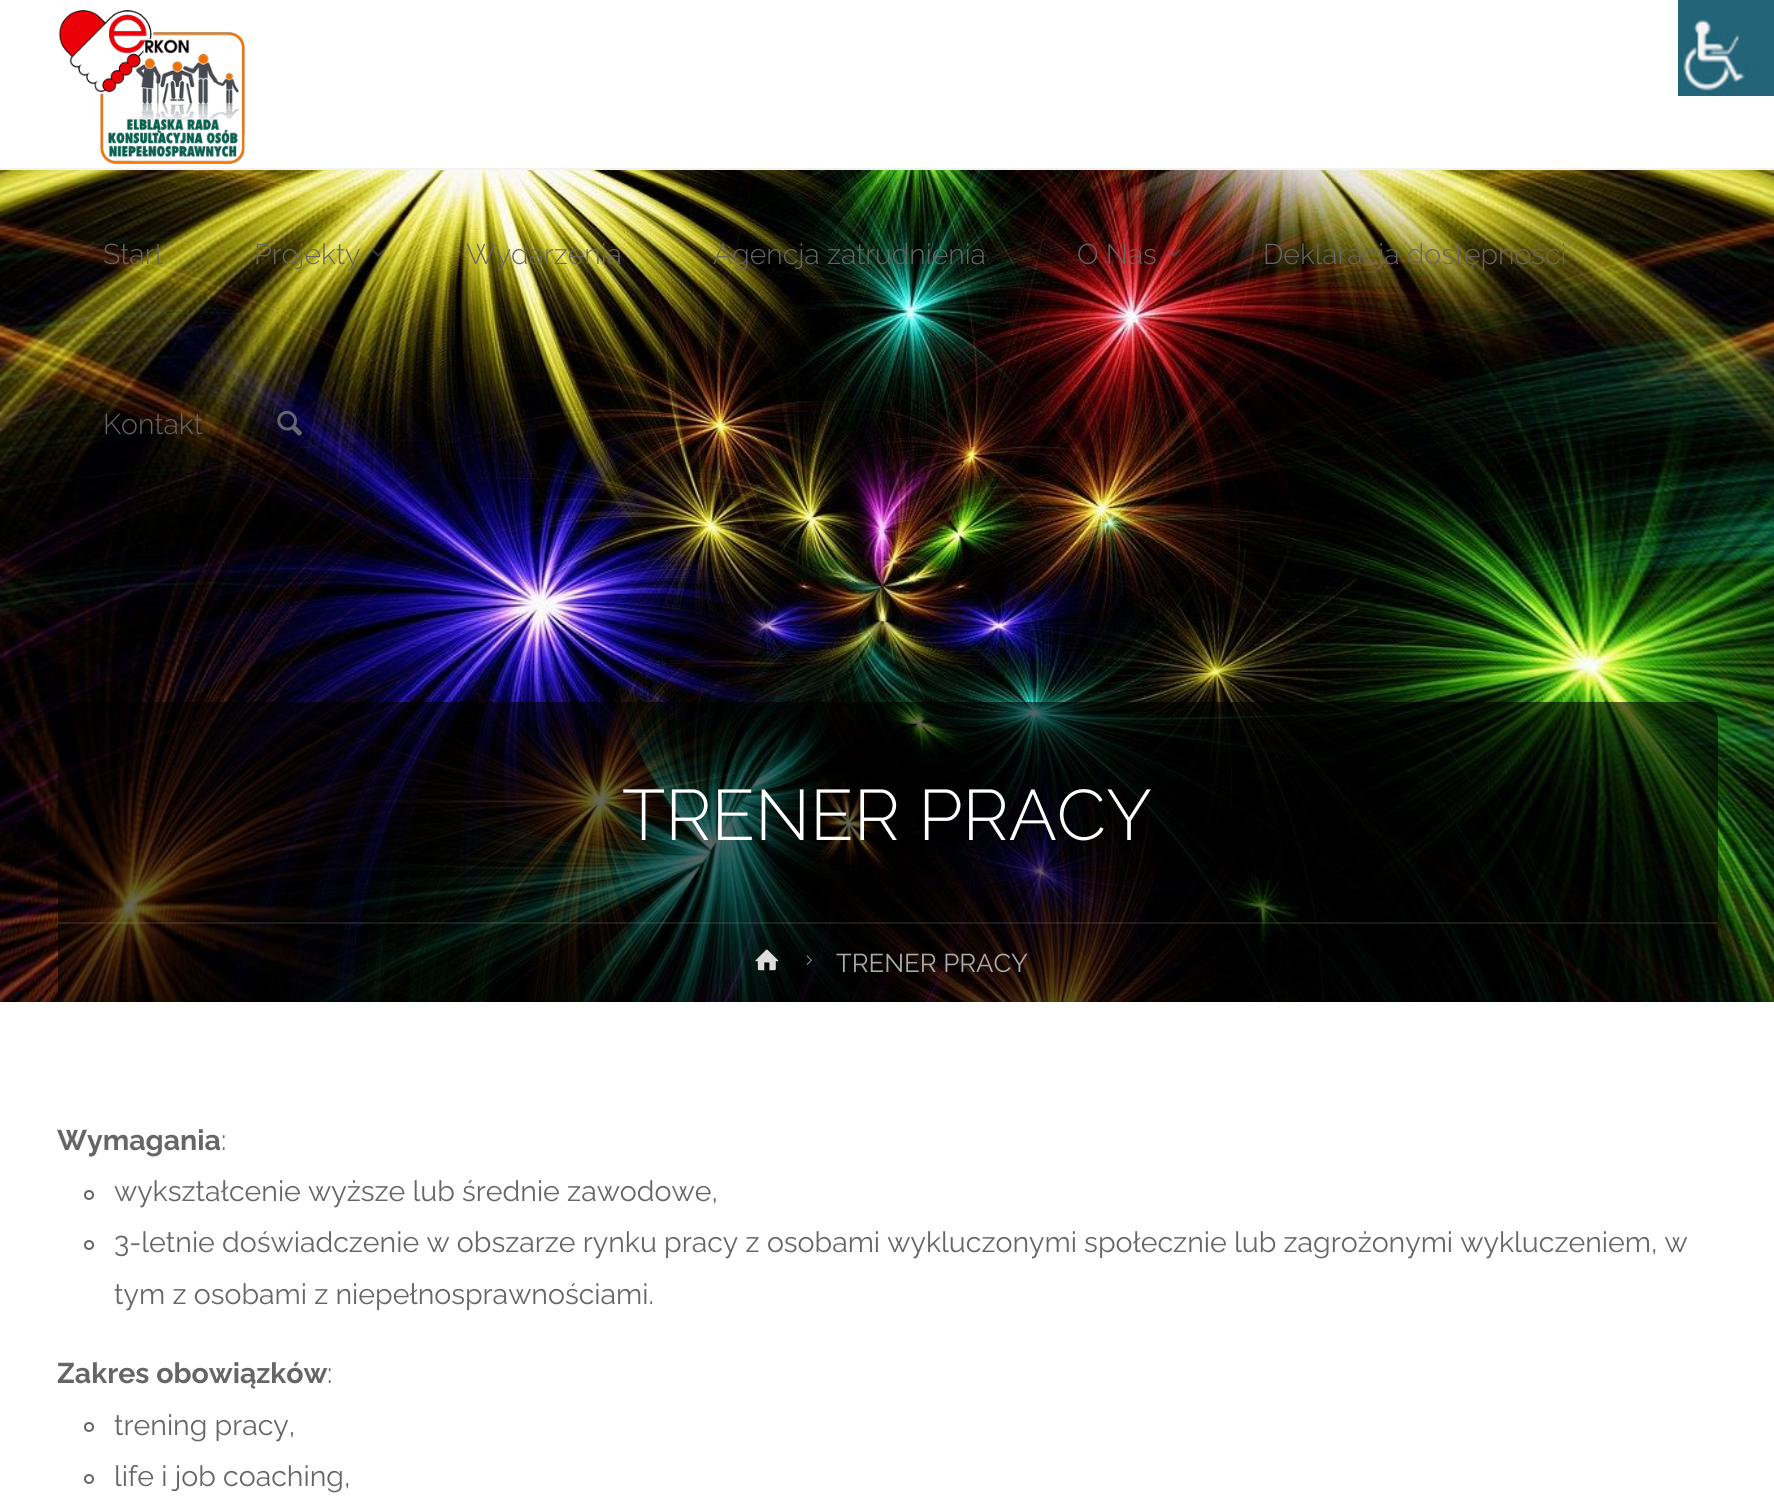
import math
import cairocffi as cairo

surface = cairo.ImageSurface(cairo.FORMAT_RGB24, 1774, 1497)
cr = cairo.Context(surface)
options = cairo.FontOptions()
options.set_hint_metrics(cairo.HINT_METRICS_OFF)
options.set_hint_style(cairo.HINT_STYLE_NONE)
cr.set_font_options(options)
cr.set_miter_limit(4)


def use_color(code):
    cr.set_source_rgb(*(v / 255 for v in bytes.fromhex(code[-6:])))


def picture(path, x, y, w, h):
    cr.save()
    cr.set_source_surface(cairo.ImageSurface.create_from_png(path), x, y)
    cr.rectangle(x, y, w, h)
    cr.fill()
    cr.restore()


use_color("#ffffff")
cr.paint()
picture("img1.png", 1678, 0, 96, 96)
use_color("#f2f2f2")
cr.rectangle(0, 168, 1774, 2)
cr.fill()
picture("img2.png", 59, 10, 187, 154)
picture("img6.png", 0, 170, 1774, 832)
cr.select_font_face("Raleway Light")
cr.set_font_size(28.5)
use_color("#666666")
cr.move_to(103, 264)
cr.show_text("Start")
cr.move_to(254, 264)
cr.show_text("Projekty")
picture("img3.png", 371, 249, 14, 8)
cr.move_to(466, 264)
cr.show_text("Wydarzenia")
cr.move_to(713, 264)
cr.show_text("Agencja zatrudnienia")
cr.move_to(1077, 264)
cr.show_text("O Nas")
picture("img4.png", 1167, 249, 14, 8)
cr.move_to(1263, 264)
cr.show_text("Deklaracja dostępności")
cr.move_to(103, 434)
cr.show_text("Kontakt")
picture("img5.png", 277, 410, 25, 26)
cr.set_source_rgba(0, 0, 0, 0.6)
cr.new_path()
cr.move_to(78, 702)
cr.line_to(1698, 702)
cr.curve_to(1709, 702, 1718, 711, 1718, 722)
cr.line_to(1718, 1002)
cr.line_to(58, 1002)
cr.line_to(58, 722)
cr.curve_to(58, 711, 67, 702, 78, 702)
cr.close_path()
cr.fill()
cr.set_font_size(71.25)
use_color("#ffffff")
cr.move_to(622, 840)
cr.show_text("TRENER PRACY")
cr.set_source_rgba(0, 0, 0, 0.05)
cr.rectangle(58, 922, 1057, 80)
cr.fill()
cr.set_source_rgba(1, 1, 1, 0.1)
cr.rectangle(58, 922, 1660, 2)
cr.fill()
picture("img7.png", 755, 949, 24, 22)
picture("img8.png", 806, 955, 6, 10)
cr.select_font_face("Raleway")
cr.set_font_size(25.75)
use_color("#ababab")
cr.move_to(836, 972)
cr.show_text("TRENER PRACY")
cr.select_font_face("Raleway", cairo.FONT_SLANT_NORMAL, cairo.FONT_WEIGHT_BOLD)
cr.set_font_size(28.5)
use_color("#666666")
cr.move_to(57, 1150)
cr.show_text("Wymagania")
cr.select_font_face("Raleway")
cr.move_to(221, 1150)
cr.show_text(":")
cr.new_path()
cr.arc(89, 1195, 4, 0, 2 * math.pi)
cr.stroke()
cr.move_to(114, 1201)
cr.show_text("wykształcenie wyższe lub średnie zawodowe,")
cr.new_path()
cr.arc(89, 1245, 4, 0, 2 * math.pi)
cr.stroke()
cr.move_to(114, 1252)
cr.show_text("3-letnie doświadczenie w obszarze rynku pracy z osobami wykluczonymi społecznie lub zagrożonymi wykluczeniem, w")
cr.move_to(114, 1304)
cr.show_text("tym z osobami z niepełnosprawnościami.")
cr.select_font_face("Raleway", cairo.FONT_SLANT_NORMAL, cairo.FONT_WEIGHT_BOLD)
cr.move_to(57, 1383)
cr.show_text("Zakres obowiązków")
cr.select_font_face("Raleway")
cr.move_to(327, 1383)
cr.show_text(":")
cr.new_path()
cr.arc(89, 1427, 4, 0, 2 * math.pi)
cr.stroke()
cr.move_to(114, 1435)
cr.show_text("trening pracy,")
cr.new_path()
cr.arc(89, 1479, 4, 0, 2 * math.pi)
cr.stroke()
cr.move_to(114, 1486)
cr.show_text("life i job coaching,")
surface.write_to_png("result.png")
